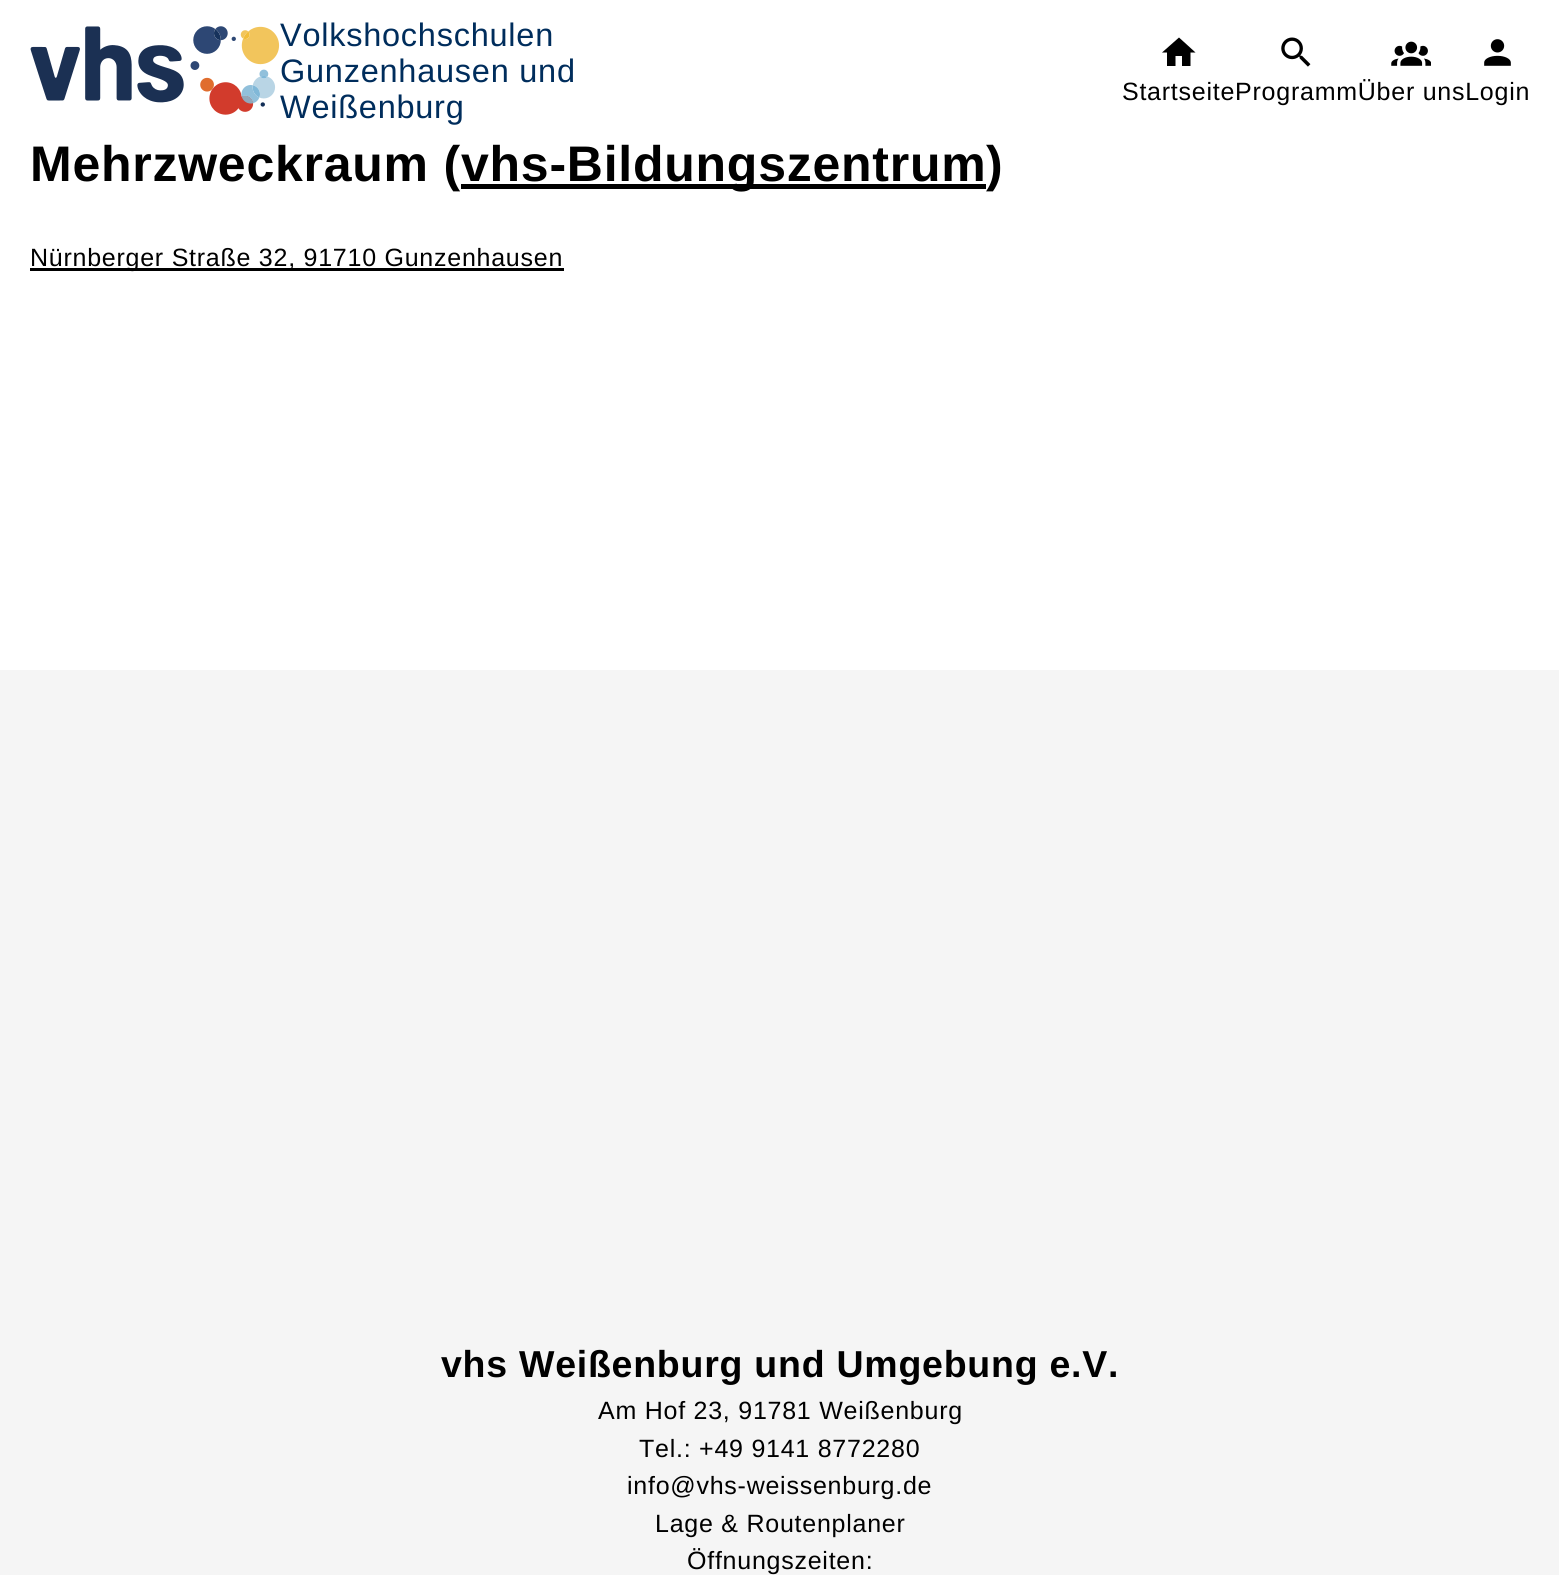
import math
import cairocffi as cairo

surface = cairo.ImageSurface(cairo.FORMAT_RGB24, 1559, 1575)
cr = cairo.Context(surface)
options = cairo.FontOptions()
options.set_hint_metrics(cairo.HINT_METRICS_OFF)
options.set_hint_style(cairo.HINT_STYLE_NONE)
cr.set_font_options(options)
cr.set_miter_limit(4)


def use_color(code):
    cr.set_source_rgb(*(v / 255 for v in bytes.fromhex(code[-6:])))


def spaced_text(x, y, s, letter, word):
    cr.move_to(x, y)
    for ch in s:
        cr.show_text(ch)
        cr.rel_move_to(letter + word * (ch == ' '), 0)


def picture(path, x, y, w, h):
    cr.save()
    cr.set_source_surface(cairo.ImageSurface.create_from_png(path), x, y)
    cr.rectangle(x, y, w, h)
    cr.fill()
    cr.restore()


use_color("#ffffff")
cr.paint()
picture("img1.png", 30, 26, 250, 89)
cr.select_font_face("Liberation Sans")
cr.set_font_size(32.5)
use_color("#002d5c")
spaced_text(280, 46, "Volkshochschulen", 0.75, 0)
spaced_text(280, 82, "Gunzenhausen und", 0.75, 0)
spaced_text(280, 118, "Weißenburg", 0.75, 0)
picture("img2.png", 1281, 37, 30, 30)
picture("img3.png", 1391, 41, 40, 25)
picture("img4.png", 1484, 39, 27, 27)
use_color("#000000")
cr.new_path()
cr.move_to(1175.5, 66)
cr.line_to(1175.5, 56)
cr.line_to(1182, 56)
cr.line_to(1182, 66)
cr.line_to(1190.5, 66)
cr.line_to(1190.5, 52.5)
cr.line_to(1195.5, 52.5)
cr.line_to(1179, 37.5)
cr.line_to(1162, 52.5)
cr.line_to(1167, 52.5)
cr.line_to(1167, 66)
cr.close_path()
cr.fill()
cr.set_font_size(25)
spaced_text(1122, 100, "StartseiteProgrammÜber unsLogin", 0.75, 0)
cr.select_font_face("Liberation Sans", cairo.FONT_SLANT_NORMAL, cairo.FONT_WEIGHT_BOLD)
cr.set_font_size(50)
spaced_text(30, 181, "Mehrzweckraum (", 0.75, 0)
cr.rectangle(461, 184, 525, 5)
cr.fill()
spaced_text(461, 181, "vhs-Bildungszentrum", 0.75, 0)
spaced_text(986, 181, ")", 0.75, 0)
cr.rectangle(30, 268, 534, 3)
cr.fill()
cr.select_font_face("Liberation Sans")
cr.set_font_size(25)
spaced_text(30, 266, "Nürnberger Straße 32, 91710 Gunzenhausen", 0.75, 0)
use_color("#f5f5f5")
cr.rectangle(0, 670, 1559, 905)
cr.fill()
cr.select_font_face("Liberation Sans", cairo.FONT_SLANT_NORMAL, cairo.FONT_WEIGHT_BOLD)
cr.set_font_size(37.5)
use_color("#000000")
spaced_text(441, 1377, "vhs Weißenburg und Umgebung e.V.", 0.75, 0)
cr.select_font_face("Liberation Sans")
cr.set_font_size(25)
spaced_text(598, 1419, "Am Hof 23, 91781 Weißenburg", 0.75, 0)
spaced_text(639, 1457, "Tel.: +49 9141 8772280", 0.75, 0)
spaced_text(627, 1494, "info@vhs-weissenburg.de", 0.75, 0)
spaced_text(655, 1532, "Lage & Routenplaner", 0.75, 0)
spaced_text(687, 1569, "Öffnungszeiten:", 0.75, 0)
surface.write_to_png("result.png")
